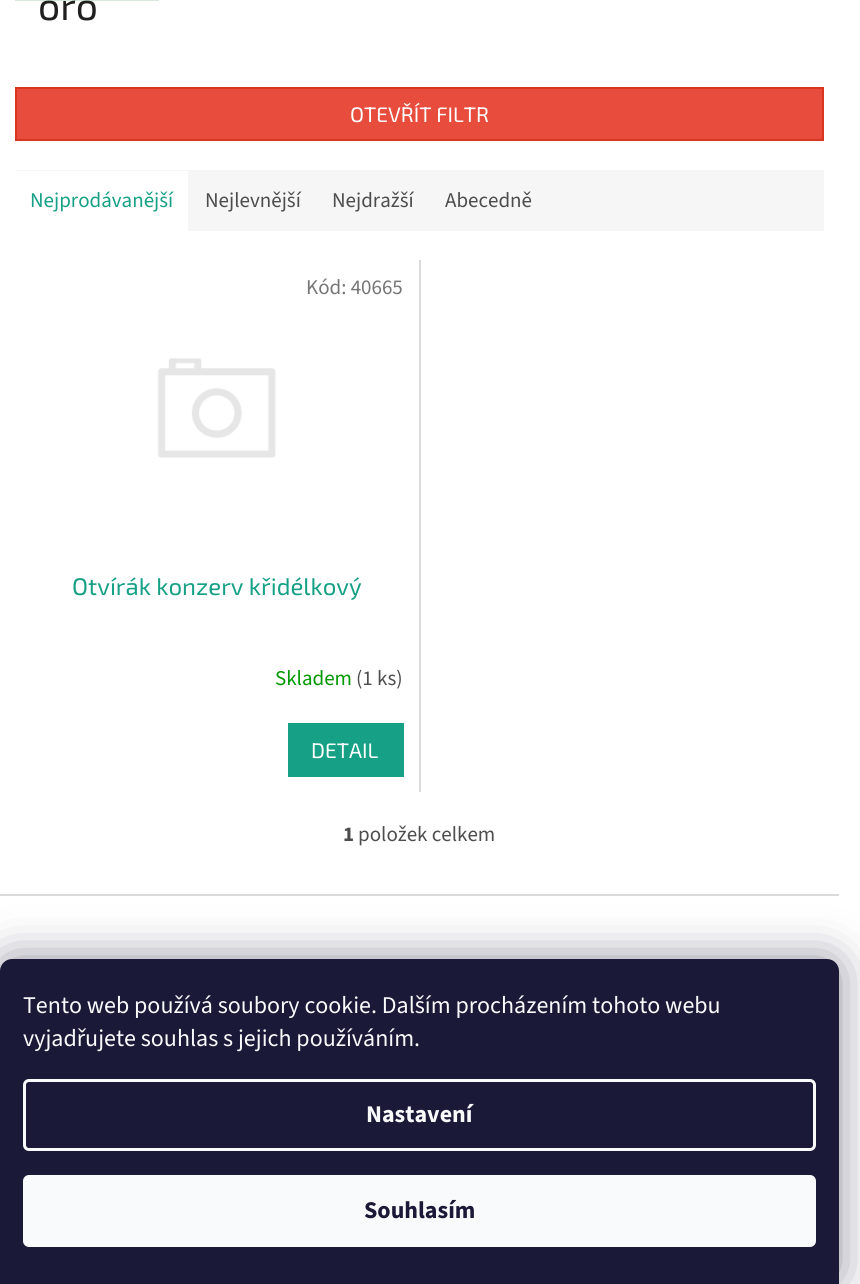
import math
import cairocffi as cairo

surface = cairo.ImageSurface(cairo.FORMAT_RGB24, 860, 1284)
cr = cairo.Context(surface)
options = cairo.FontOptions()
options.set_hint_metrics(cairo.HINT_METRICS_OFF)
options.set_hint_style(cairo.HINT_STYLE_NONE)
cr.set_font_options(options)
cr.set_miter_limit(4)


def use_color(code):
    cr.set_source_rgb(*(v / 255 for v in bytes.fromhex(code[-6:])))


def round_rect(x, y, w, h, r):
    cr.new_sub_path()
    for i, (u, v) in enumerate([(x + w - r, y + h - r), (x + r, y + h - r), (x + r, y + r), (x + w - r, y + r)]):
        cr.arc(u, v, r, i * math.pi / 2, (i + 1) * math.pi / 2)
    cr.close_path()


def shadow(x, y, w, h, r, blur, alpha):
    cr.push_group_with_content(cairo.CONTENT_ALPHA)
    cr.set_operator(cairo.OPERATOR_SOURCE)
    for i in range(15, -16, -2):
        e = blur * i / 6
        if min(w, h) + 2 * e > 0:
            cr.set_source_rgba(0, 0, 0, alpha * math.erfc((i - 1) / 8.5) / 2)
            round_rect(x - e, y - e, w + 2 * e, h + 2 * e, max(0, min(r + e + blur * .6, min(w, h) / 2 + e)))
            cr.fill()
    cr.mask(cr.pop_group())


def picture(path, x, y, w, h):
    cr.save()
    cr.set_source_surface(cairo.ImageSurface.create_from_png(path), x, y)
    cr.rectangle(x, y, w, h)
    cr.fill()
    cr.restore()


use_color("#ffffff")
cr.paint()
cr.select_font_face("Exo 2")
cr.set_font_size(39)
use_color("#1f1f1f")
cr.move_to(38, 20)
cr.show_text("oro")
picture("img1.png", 15, 0, 144, 1)
use_color("#e74c3c")
cr.rectangle(16, 88, 807, 52)
cr.fill_preserve()
use_color("#d93621")
cr.stroke()
cr.set_font_size(21)
use_color("#ffffff")
cr.move_to(350, 122)
cr.show_text("OTEVŘÍT FILTR")
use_color("#f6f6f6")
cr.rectangle(15, 170, 809, 61)
cr.fill()
use_color("#ffffff")
cr.rectangle(15, 171, 173, 60)
cr.fill()
cr.select_font_face("Source Sans 3")
use_color("#16a085")
cr.move_to(30, 207)
cr.show_text("Nejprodávanější")
use_color("#4d4d4d")
cr.move_to(205, 207)
cr.show_text("Nejlevnější")
cr.move_to(332, 207)
cr.show_text("Nejdražší")
cr.move_to(445, 207)
cr.show_text("Abecedně")
use_color("#dadada")
cr.rectangle(419, 260, 2, 532)
cr.fill()
use_color("#767676")
cr.move_to(306, 294)
cr.show_text("Kód: 40665")
picture("img2.png", 157, 358, 119, 100)
cr.select_font_face("Exo 2")
cr.set_font_size(24)
use_color("#16a085")
cr.move_to(72, 595)
cr.show_text("Otvírák konzerv křidélkový")
cr.select_font_face("Source Sans 3")
cr.set_font_size(21)
use_color("#009901")
cr.move_to(275, 685)
cr.show_text("Skladem")
use_color("#4d4d4d")
cr.move_to(356, 685)
cr.show_text("(1 ks)")
use_color("#16a085")
cr.rectangle(288, 723, 116, 54)
cr.fill()
cr.select_font_face("Exo 2")
use_color("#ffffff")
cr.move_to(311, 758)
cr.show_text("DETAIL")
cr.select_font_face("Source Sans 3", cairo.FONT_SLANT_NORMAL, cairo.FONT_WEIGHT_BOLD)
use_color("#4d4d4d")
cr.move_to(343, 841)
cr.show_text("1")
cr.select_font_face("Source Sans 3")
cr.move_to(358, 841)
cr.show_text("položek celkem")
use_color("#dadada")
cr.rectangle(0, 894, 839, 2)
cr.fill()
use_color("#1b1939")
shadow(0, 959, 839, 325, 12, 22.5, 0.5)
use_color("#1a1937")
cr.new_path()
cr.move_to(12, 959)
cr.line_to(827, 959)
cr.curve_to(833.5, 959, 839, 964.5, 839, 971)
cr.line_to(839, 1284)
cr.line_to(0, 1284)
cr.line_to(0, 971)
cr.curve_to(0, 964.5, 5.5, 959, 12, 959)
cr.close_path()
cr.fill()
cr.set_font_size(24)
use_color("#f8fafb")
cr.move_to(23, 1013)
cr.show_text("Tento web používá soubory cookie. Dalším procházením tohoto webu")
cr.move_to(23, 1046)
cr.show_text("vyjadřujete souhlas s jejich používáním.")
round_rect(24.5, 1080.5, 790, 69, 4.5)
cr.set_line_width(3)
cr.stroke()
cr.select_font_face("Source Sans 3", cairo.FONT_SLANT_NORMAL, cairo.FONT_WEIGHT_BOLD)
cr.move_to(366, 1122)
cr.show_text("Nastavení")
round_rect(23, 1175, 793, 72, 6)
cr.fill()
use_color("#1a1937")
cr.move_to(364, 1218)
cr.show_text("Souhlasím")
surface.write_to_png("result.png")
